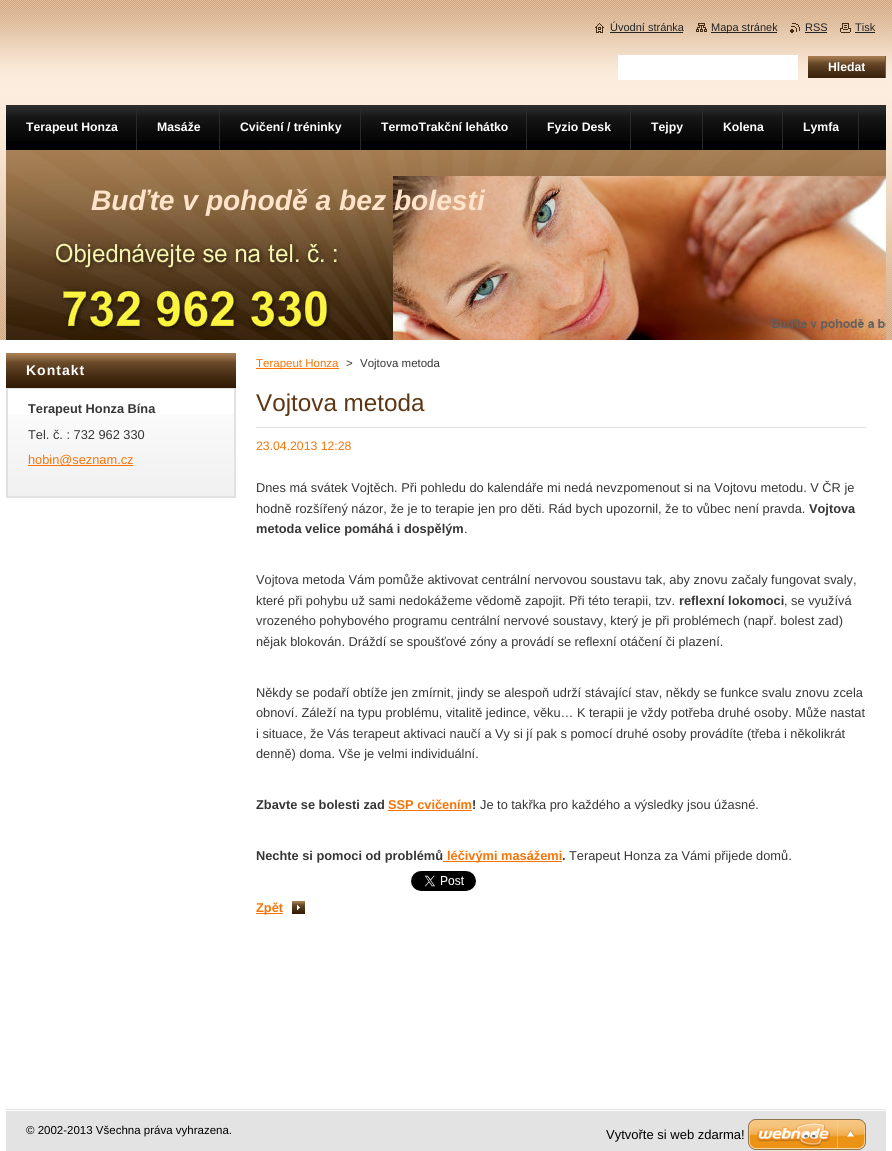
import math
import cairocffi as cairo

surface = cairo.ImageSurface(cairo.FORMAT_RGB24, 892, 1151)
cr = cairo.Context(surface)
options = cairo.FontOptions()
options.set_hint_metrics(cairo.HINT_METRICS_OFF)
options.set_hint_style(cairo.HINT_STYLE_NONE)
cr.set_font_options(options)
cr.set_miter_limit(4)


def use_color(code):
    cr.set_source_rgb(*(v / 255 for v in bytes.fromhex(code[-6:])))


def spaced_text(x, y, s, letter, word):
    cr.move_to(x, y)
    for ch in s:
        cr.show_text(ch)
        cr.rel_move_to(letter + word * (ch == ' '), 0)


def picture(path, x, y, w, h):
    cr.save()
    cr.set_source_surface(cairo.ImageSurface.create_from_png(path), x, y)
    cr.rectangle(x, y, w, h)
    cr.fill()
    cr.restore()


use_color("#ffffff")
cr.paint()
picture("img1.png", 0, 0, 892, 340)
picture("img2.png", 595, 23, 9, 10)
cr.select_font_face("Liberation Sans")
cr.set_font_size(11)
use_color("#242424")
cr.move_to(610, 31)
cr.show_text("Úvodní stránka")
cr.rectangle(610, 32, 73, 1)
cr.fill()
picture("img3.png", 696, 23, 11, 9)
cr.rectangle(711, 32, 66, 1)
cr.fill()
cr.move_to(711, 31)
cr.show_text("Mapa stránek")
picture("img4.png", 790, 23, 10, 10)
cr.move_to(805, 31)
cr.show_text("RSS")
cr.rectangle(805, 32, 22, 1)
cr.fill()
picture("img5.png", 840, 23, 11, 10)
cr.move_to(855, 31)
cr.show_text("Tisk")
cr.rectangle(855, 32, 20, 1)
cr.fill()
use_color("#ffffff")
cr.rectangle(618, 55, 180, 25)
cr.fill()
picture("img6.png", 808, 56, 77, 22)
use_color("#007fb2")
cr.rectangle(885, 56, 1, 22)
cr.fill()
cr.select_font_face("Liberation Sans", cairo.FONT_SLANT_NORMAL, cairo.FONT_WEIGHT_BOLD)
cr.set_font_size(12.25)
use_color("#ffffff")
cr.move_to(828, 71)
cr.show_text("Hledat")
use_color("#000000")
cr.rectangle(6, 141, 880, 9)
cr.fill()
picture("img7.png", 6, 105, 880, 36)
use_color("#2a2a2a")
cr.rectangle(136, 110, 1, 40)
cr.fill()
use_color("#ffffff")
cr.move_to(26, 131)
cr.show_text("Terapeut Honza")
use_color("#2a2a2a")
cr.rectangle(219, 110, 1, 40)
cr.fill()
use_color("#ffffff")
cr.move_to(157, 131)
cr.show_text("Masáže")
use_color("#2a2a2a")
cr.rectangle(360, 110, 1, 40)
cr.fill()
use_color("#ffffff")
cr.move_to(240, 131)
cr.show_text("Cvičení / tréninky")
use_color("#2a2a2a")
cr.rectangle(526, 110, 1, 40)
cr.fill()
use_color("#ffffff")
cr.move_to(381, 131)
cr.show_text("TermoTrakční lehátko")
use_color("#2a2a2a")
cr.rectangle(630, 110, 1, 40)
cr.fill()
use_color("#ffffff")
cr.move_to(547, 131)
cr.show_text("Fyzio Desk")
use_color("#2a2a2a")
cr.rectangle(702, 110, 1, 40)
cr.fill()
use_color("#ffffff")
cr.move_to(651, 131)
cr.show_text("Tejpy")
use_color("#2a2a2a")
cr.rectangle(782, 110, 1, 40)
cr.fill()
use_color("#ffffff")
cr.move_to(723, 131)
cr.show_text("Kolena")
use_color("#2a2a2a")
cr.rectangle(858, 110, 1, 40)
cr.fill()
use_color("#ffffff")
cr.move_to(803, 131)
cr.show_text("Lymfa")
picture("img8.png", 6, 150, 880, 190)
cr.select_font_face("Liberation Sans", cairo.FONT_SLANT_ITALIC, cairo.FONT_WEIGHT_BOLD)
cr.set_font_size(28.2)
use_color("#ffe4c9")
cr.move_to(91, 210)
cr.show_text("Buďte v pohodě a bez bolesti")
picture("img9.png", 8, 414, 226, 82)
use_color("#a67c52")
cr.rectangle(6, 353, 230, 2)
cr.fill()
picture("img10.png", 6, 355, 230, 33)
use_color("#e1e1e1")
cr.rectangle(6, 388, 230, 1)
cr.fill()
cr.select_font_face("Liberation Sans", cairo.FONT_SLANT_NORMAL, cairo.FONT_WEIGHT_BOLD)
cr.set_font_size(14)
use_color("#ffffff")
spaced_text(26, 375, "Kontakt", 1, 0)
use_color("#e1e1e1")
cr.rectangle(234, 389, 2, 109)
cr.fill()
cr.rectangle(6, 496, 230, 2)
cr.fill()
cr.rectangle(6, 389, 2, 109)
cr.fill()
cr.set_font_size(12.8)
use_color("#363636")
cr.move_to(28, 413)
cr.show_text("Terapeut Honza Bína")
cr.select_font_face("Liberation Sans")
cr.move_to(28, 439)
cr.show_text("Tel. č. : 732 962 330")
use_color("#f87307")
cr.rectangle(28, 465, 105, 1)
cr.fill()
cr.move_to(28, 464)
cr.show_text("hobin@seznam.cz")
cr.rectangle(256, 368, 83, 1)
cr.fill()
cr.set_font_size(11.5)
cr.move_to(256, 367)
cr.show_text("Terapeut Honza")
use_color("#363636")
cr.move_to(346, 367)
cr.show_text(">")
cr.move_to(360, 367)
cr.show_text("Vojtova metoda")
use_color("#e1e1e1")
cr.rectangle(256, 427, 610, 1)
cr.fill()
cr.set_font_size(24.25)
use_color("#5e3612")
cr.move_to(256, 411)
cr.show_text("Vojtova metoda")
cr.set_font_size(12.25)
use_color("#f87307")
cr.move_to(256, 450)
cr.show_text("23.04.2013 12:28")
cr.set_font_size(12.8)
use_color("#363636")
cr.move_to(256, 492)
cr.show_text("Dnes má svátek Vojtěch. Při pohledu do kalendáře mi nedá nevzpomenout si na Vojtovu metodu. V ČR je")
cr.move_to(256, 513)
cr.show_text("hodně rozšířený názor, že je to terapie jen pro děti. Rád bych upozornil, že to vůbec není pravda.")
cr.select_font_face("Liberation Sans", cairo.FONT_SLANT_NORMAL, cairo.FONT_WEIGHT_BOLD)
cr.move_to(809, 513)
cr.show_text("Vojtova")
cr.move_to(256, 533)
cr.show_text("metoda velice pomáhá i dospělým")
cr.select_font_face("Liberation Sans")
cr.move_to(464, 533)
cr.show_text(".")
cr.move_to(256, 584)
cr.show_text("Vojtova metoda Vám pomůže aktivovat centrální nervovou soustavu tak, aby znovu začaly fungovat svaly,")
cr.move_to(256, 605)
cr.show_text("které při pohybu už sami nedokážeme vědomě zapojit. Při této terapii, tzv.")
cr.select_font_face("Liberation Sans", cairo.FONT_SLANT_NORMAL, cairo.FONT_WEIGHT_BOLD)
cr.move_to(679, 605)
cr.show_text("reflexní lokomoci")
cr.select_font_face("Liberation Sans")
cr.move_to(784, 605)
cr.show_text(", se využívá")
cr.move_to(256, 625)
cr.show_text("vrozeného pohybového programu centrální nervové soustavy, který je při problémech (např. bolest zad)")
cr.move_to(256, 646)
cr.show_text("nějak blokován. Dráždí se spoušťové zóny a provádí se reflexní otáčení či plazení.")
cr.move_to(256, 697)
cr.show_text("Někdy se podaří obtíže jen zmírnit, jindy se alespoň udrží stávající stav, někdy se funkce svalu znovu zcela")
cr.move_to(256, 717)
cr.show_text("obnoví. Záleží na typu problému, vitalitě jedince, věku… K terapii je vždy potřeba druhé osoby. Může nastat")
cr.move_to(256, 738)
cr.show_text("i situace, že Vás terapeut aktivaci naučí a Vy si jí pak s pomocí druhé osoby provádíte (třeba i několikrát")
cr.move_to(256, 758)
cr.show_text("denně) doma. Vše je velmi individuální.")
cr.select_font_face("Liberation Sans", cairo.FONT_SLANT_NORMAL, cairo.FONT_WEIGHT_BOLD)
cr.move_to(256, 809)
cr.show_text("Zbavte se bolesti zad")
use_color("#f87307")
cr.move_to(388, 809)
cr.show_text("SSP cvičením")
cr.rectangle(388, 810, 84, 1)
cr.fill()
use_color("#363636")
cr.move_to(472, 809)
cr.show_text("!")
cr.select_font_face("Liberation Sans")
cr.move_to(480, 809)
cr.show_text("Je to takřka pro každého a výsledky jsou úžasné.")
cr.select_font_face("Liberation Sans", cairo.FONT_SLANT_NORMAL, cairo.FONT_WEIGHT_BOLD)
cr.move_to(256, 860)
cr.show_text("Nechte si pomoci od problémů")
use_color("#f87307")
cr.rectangle(443, 861, 119, 1)
cr.fill()
cr.move_to(447, 860)
cr.show_text("léčivými masážemi")
use_color("#363636")
cr.move_to(562, 860)
cr.show_text(".")
cr.select_font_face("Liberation Sans")
cr.move_to(569, 860)
cr.show_text("Terapeut Honza za Vámi přijede domů.")
picture("img11.png", 411, 871, 65, 20)
picture("img12.png", 292, 901, 13, 13)
use_color("#f87307")
cr.rectangle(256, 913, 27, 1)
cr.fill()
cr.select_font_face("Liberation Sans", cairo.FONT_SLANT_NORMAL, cairo.FONT_WEIGHT_BOLD)
cr.move_to(256, 912)
cr.show_text("Zpět")
use_color("#e3e3e3")
cr.rectangle(6, 1109, 880, 42)
cr.fill()
use_color("#ffffff")
cr.rectangle(6, 1110, 880, 1)
cr.fill()
cr.select_font_face("Liberation Sans")
cr.set_font_size(11.5)
use_color("#000000")
cr.move_to(26, 1134)
cr.show_text("© 2002-2013 Všechna práva vyhrazena.")
cr.set_font_size(13)
cr.move_to(606, 1139)
cr.show_text("Vytvořte si web zdarma!")
picture("img13.png", 748, 1119, 118, 31)
surface.write_to_png("result.png")
